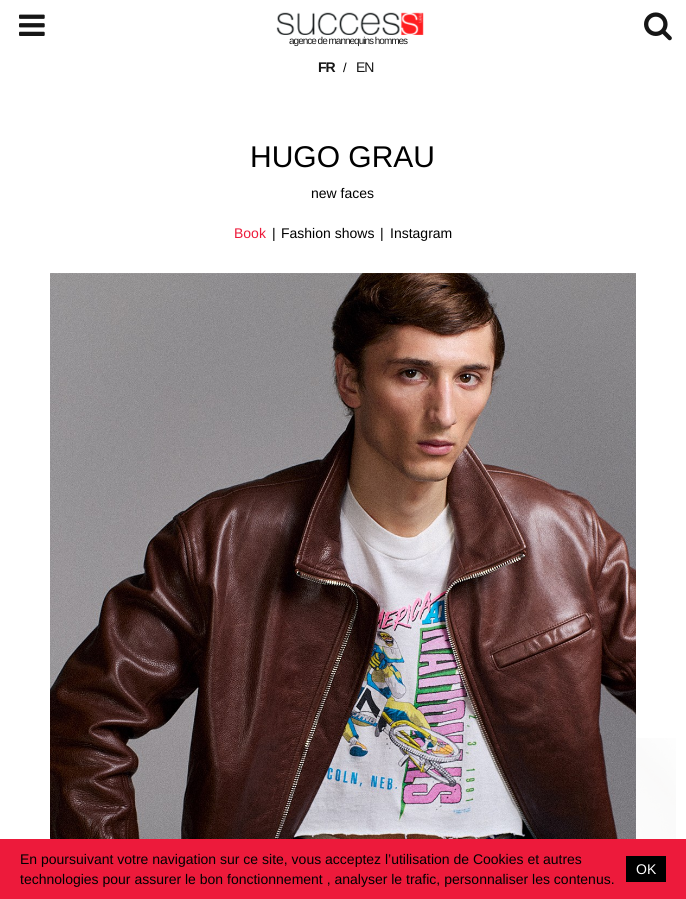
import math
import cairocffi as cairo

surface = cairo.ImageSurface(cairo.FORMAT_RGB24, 686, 899)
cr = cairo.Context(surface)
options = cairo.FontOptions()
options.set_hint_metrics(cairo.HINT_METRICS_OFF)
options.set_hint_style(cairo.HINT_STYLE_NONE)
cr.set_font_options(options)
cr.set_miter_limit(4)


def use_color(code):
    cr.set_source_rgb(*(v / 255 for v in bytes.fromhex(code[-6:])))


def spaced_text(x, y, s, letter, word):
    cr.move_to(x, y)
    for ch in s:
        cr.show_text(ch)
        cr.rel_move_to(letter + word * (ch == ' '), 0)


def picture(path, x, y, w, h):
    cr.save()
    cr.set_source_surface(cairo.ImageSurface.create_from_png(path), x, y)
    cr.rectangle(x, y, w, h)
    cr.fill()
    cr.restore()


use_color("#ffffff")
cr.paint()
picture("img1.png", 19, 14, 26, 22)
picture("img2.png", 644, 12, 28, 29)
picture("img3.png", 276, 12, 148, 23)
cr.select_font_face("Liberation Sans")
cr.set_font_size(10)
use_color("#161616")
spaced_text(289, 44, "agence de mannequins hommes", -1, 0)
cr.select_font_face("Liberation Sans", cairo.FONT_SLANT_NORMAL, cairo.FONT_WEIGHT_BOLD)
cr.set_font_size(14)
spaced_text(318, 72, "FR", -1, 0)
cr.select_font_face("Liberation Sans")
cr.set_font_size(13)
use_color("#000000")
cr.move_to(343, 72)
cr.show_text("/")
cr.set_font_size(14)
use_color("#161616")
spaced_text(356, 72, "EN", -1, 0)
cr.set_font_size(30)
use_color("#000000")
cr.move_to(250, 167)
cr.show_text("HUGO GRAU")
cr.set_font_size(14)
cr.move_to(311, 198)
cr.show_text("new faces")
use_color("#ed1a3a")
cr.move_to(234, 238)
cr.show_text("Book")
use_color("#000000")
cr.move_to(272, 238)
cr.show_text("|")
cr.move_to(281, 238)
cr.show_text("Fashion shows")
cr.move_to(380, 238)
cr.show_text("|")
cr.move_to(390, 238)
cr.show_text("Instagram")
picture("img4.png", 50, 273, 586, 566)
picture("img5.png", 636, 738, 40, 101)
use_color("#ed1a3b")
cr.rectangle(0, 839, 686, 60)
cr.fill()
use_color("#000000")
cr.move_to(20, 864)
cr.show_text("En poursuivant votre navigation sur ce site, vous acceptez l’utilisation de Cookies et autres")
cr.rectangle(626, 856, 40, 26)
cr.fill()
use_color("#ffffff")
cr.move_to(636, 874)
cr.show_text("OK")
use_color("#000000")
cr.move_to(20, 884)
cr.show_text("technologies pour assurer le bon fonctionnement , analyser le trafic, personnaliser les contenus.")
surface.write_to_png("result.png")
